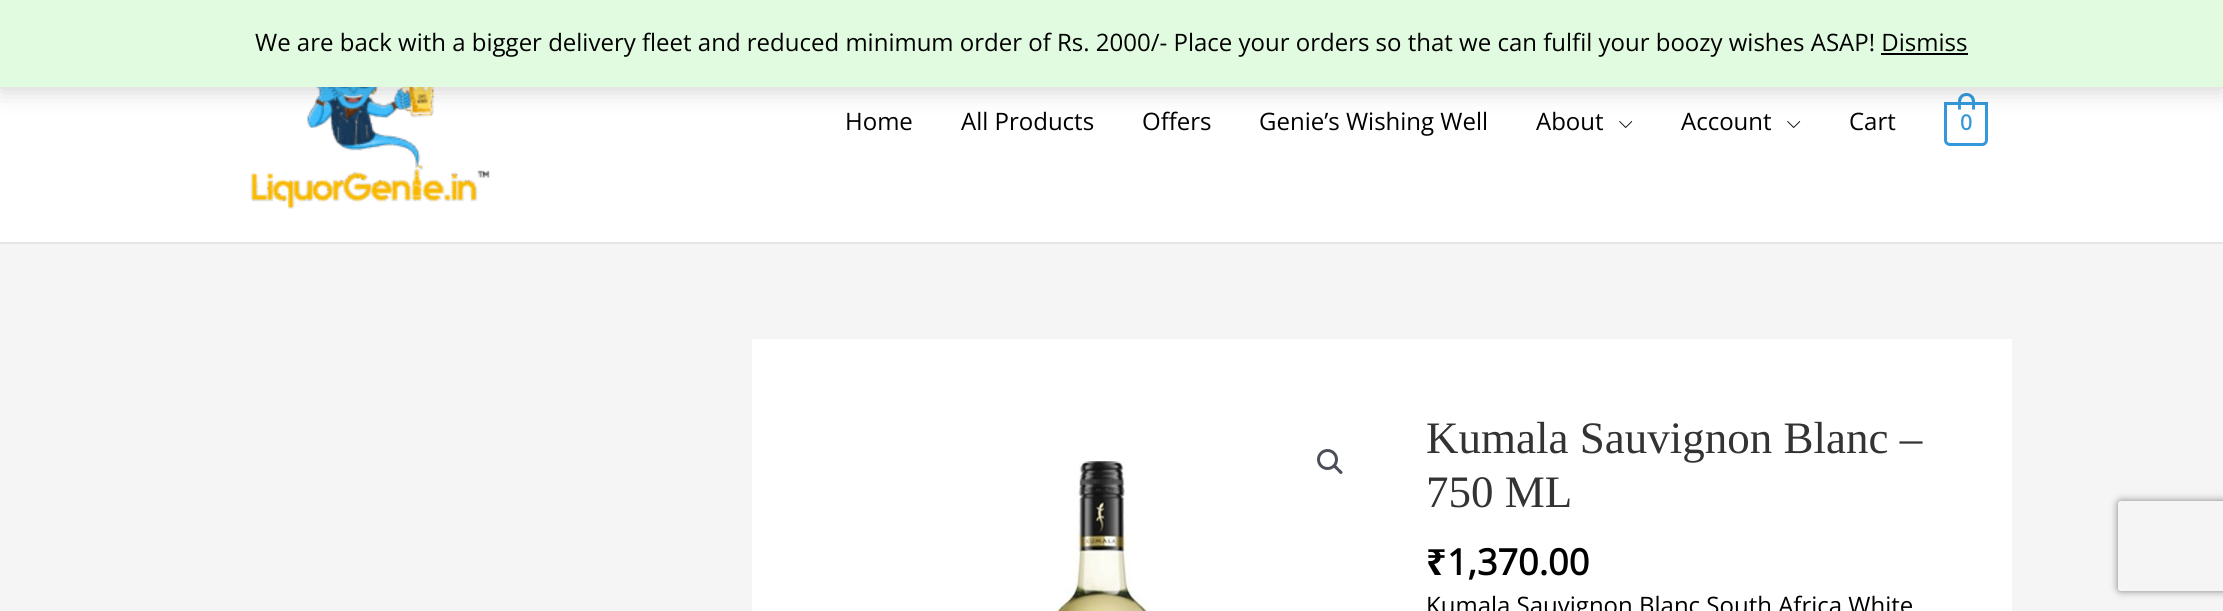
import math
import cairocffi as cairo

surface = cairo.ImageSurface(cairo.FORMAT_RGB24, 2223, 611)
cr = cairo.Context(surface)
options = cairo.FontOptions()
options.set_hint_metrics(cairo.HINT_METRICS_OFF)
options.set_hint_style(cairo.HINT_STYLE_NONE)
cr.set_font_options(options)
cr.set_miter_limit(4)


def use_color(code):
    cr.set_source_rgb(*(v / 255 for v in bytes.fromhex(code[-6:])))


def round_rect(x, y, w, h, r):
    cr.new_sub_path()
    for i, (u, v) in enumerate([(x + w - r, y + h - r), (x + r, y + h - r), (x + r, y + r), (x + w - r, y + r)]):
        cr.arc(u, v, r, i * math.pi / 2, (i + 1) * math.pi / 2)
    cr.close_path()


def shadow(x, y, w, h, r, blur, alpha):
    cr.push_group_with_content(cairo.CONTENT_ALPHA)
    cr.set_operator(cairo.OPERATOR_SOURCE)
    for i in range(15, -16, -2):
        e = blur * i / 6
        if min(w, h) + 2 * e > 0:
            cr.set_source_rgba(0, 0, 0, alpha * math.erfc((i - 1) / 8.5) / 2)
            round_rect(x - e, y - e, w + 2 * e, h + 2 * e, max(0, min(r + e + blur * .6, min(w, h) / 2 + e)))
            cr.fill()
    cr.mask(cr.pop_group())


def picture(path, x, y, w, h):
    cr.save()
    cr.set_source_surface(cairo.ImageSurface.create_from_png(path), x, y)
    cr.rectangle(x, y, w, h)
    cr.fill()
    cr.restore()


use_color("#f5f5f5")
cr.paint()
use_color("#ffffff")
cr.rectangle(0, 87, 2223, 155)
cr.fill()
picture("img1.png", 250, 87, 240, 122)
picture("img2.png", 1619, 121, 14, 7)
picture("img2.png", 1787, 121, 14, 7)
cr.new_path()
cr.move_to(1945.5, 103.5)
cr.line_to(1986.5, 103.5)
cr.line_to(1986.5, 140)
cr.curve_to(1986.5, 142.5, 1984.5, 144.5, 1982, 144.5)
cr.line_to(1950, 144.5)
cr.curve_to(1947.5, 144.5, 1945.5, 142.5, 1945.5, 140)
cr.close_path()
use_color("#3498db")
cr.set_line_width(3)
cr.stroke()
cr.set_fill_rule(cairo.FILL_RULE_EVEN_ODD)
cr.new_path()
cr.move_to(1966.5, 93)
cr.curve_to(1971, 93, 1975, 96.5, 1975, 101)
cr.line_to(1975, 109.5)
cr.line_to(1958, 109.5)
cr.line_to(1958, 101)
cr.curve_to(1958, 96.5, 1962, 93, 1966.5, 93)
cr.close_path()
cr.move_to(1966.5, 96)
cr.curve_to(1973.5, 96, 1972, 105, 1972, 109.5)
cr.line_to(1961, 109.5)
cr.curve_to(1961, 105, 1959.5, 96, 1966.5, 96)
cr.close_path()
cr.fill()
use_color("#000000")
shadow(0, 2, 2223, 87, 0, 12, 0.2)
use_color("#e1fbe1")
cr.rectangle(0, 0, 2223, 87)
cr.fill()
cr.select_font_face("Open Sans")
cr.set_font_size(24)
use_color("#000000")
cr.move_to(255, 51)
cr.show_text("We are back with a bigger delivery fleet and reduced minimum order of Rs. 2000/- Place your orders so that we can fulfil your boozy wishes ASAP! Dismiss")
cr.rectangle(1881, 53, 87, 2)
cr.fill()
use_color("#e5e5e5")
cr.rectangle(0, 242, 2223, 2)
cr.fill()
use_color("#000000")
cr.move_to(845, 130)
cr.show_text("Home")
cr.move_to(961, 130)
cr.show_text("All Products")
cr.move_to(1142, 130)
cr.show_text("Offers")
cr.move_to(1259, 130)
cr.show_text("Genie’s Wishing Well")
cr.move_to(1536, 130)
cr.show_text("About")
cr.move_to(1681, 130)
cr.show_text("Account")
cr.move_to(1849, 130)
cr.show_text("Cart")
cr.select_font_face("Open Sans", cairo.FONT_SLANT_NORMAL, cairo.FONT_WEIGHT_BOLD)
cr.set_font_size(21)
use_color("#3498db")
cr.move_to(1960, 130)
cr.show_text("0")
use_color("#ffffff")
cr.rectangle(752, 339, 1260, 272)
cr.fill()
picture("img3.png", 1053, 461, 96, 150)
cr.arc(1327.5, 459.5, 9, 0, 2 * math.pi)
use_color("#4b4f58")
cr.stroke()
cr.set_fill_rule(cairo.FILL_RULE_WINDING)
cr.new_path()
cr.move_to(1334, 465.5)
cr.curve_to(1335.5, 463.5, 1338, 467.5, 1339, 468.5)
cr.curve_to(1340, 469.5, 1344, 472, 1342, 473.5)
cr.curve_to(1340.5, 475.5, 1338, 471.5, 1337, 470.5)
cr.curve_to(1336, 469.5, 1332, 467, 1334, 465.5)
cr.close_path()
cr.fill()
cr.select_font_face("Liberation Serif")
cr.set_font_size(45)
use_color("#333333")
cr.move_to(1426, 453)
cr.show_text("Kumala Sauvignon Blanc –")
cr.move_to(1426, 507)
cr.show_text("750 ML")
cr.select_font_face("Noto Sans", cairo.FONT_SLANT_NORMAL, cairo.FONT_WEIGHT_BOLD)
cr.set_font_size(36)
use_color("#000000")
cr.move_to(1426, 575)
cr.show_text("₹")
cr.select_font_face("Open Sans", cairo.FONT_SLANT_NORMAL, cairo.FONT_WEIGHT_BOLD)
cr.move_to(1447, 575)
cr.show_text("1,370.00")
cr.select_font_face("Open Sans")
cr.set_font_size(24)
cr.move_to(1426, 614)
cr.show_text("Kumala Sauvignon Blanc South Africa White")
cr.save()
cr.set_fill_rule(cairo.FILL_RULE_EVEN_ODD)
cr.new_path()
cr.move_to(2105, 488)
cr.line_to(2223, 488)
cr.line_to(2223, 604)
cr.line_to(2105, 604)
cr.close_path()
cr.move_to(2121, 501)
cr.line_to(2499, 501)
cr.curve_to(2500.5, 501, 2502, 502.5, 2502, 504)
cr.line_to(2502, 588)
cr.curve_to(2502, 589.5, 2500.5, 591, 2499, 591)
cr.line_to(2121, 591)
cr.curve_to(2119.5, 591, 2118, 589.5, 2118, 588)
cr.line_to(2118, 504)
cr.curve_to(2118, 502.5, 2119.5, 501, 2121, 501)
cr.close_path()
cr.clip()
use_color("#808080")
shadow(2118, 501, 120, 90, 3, 4, 1)
cr.restore()
surface.write_to_png("result.png")
